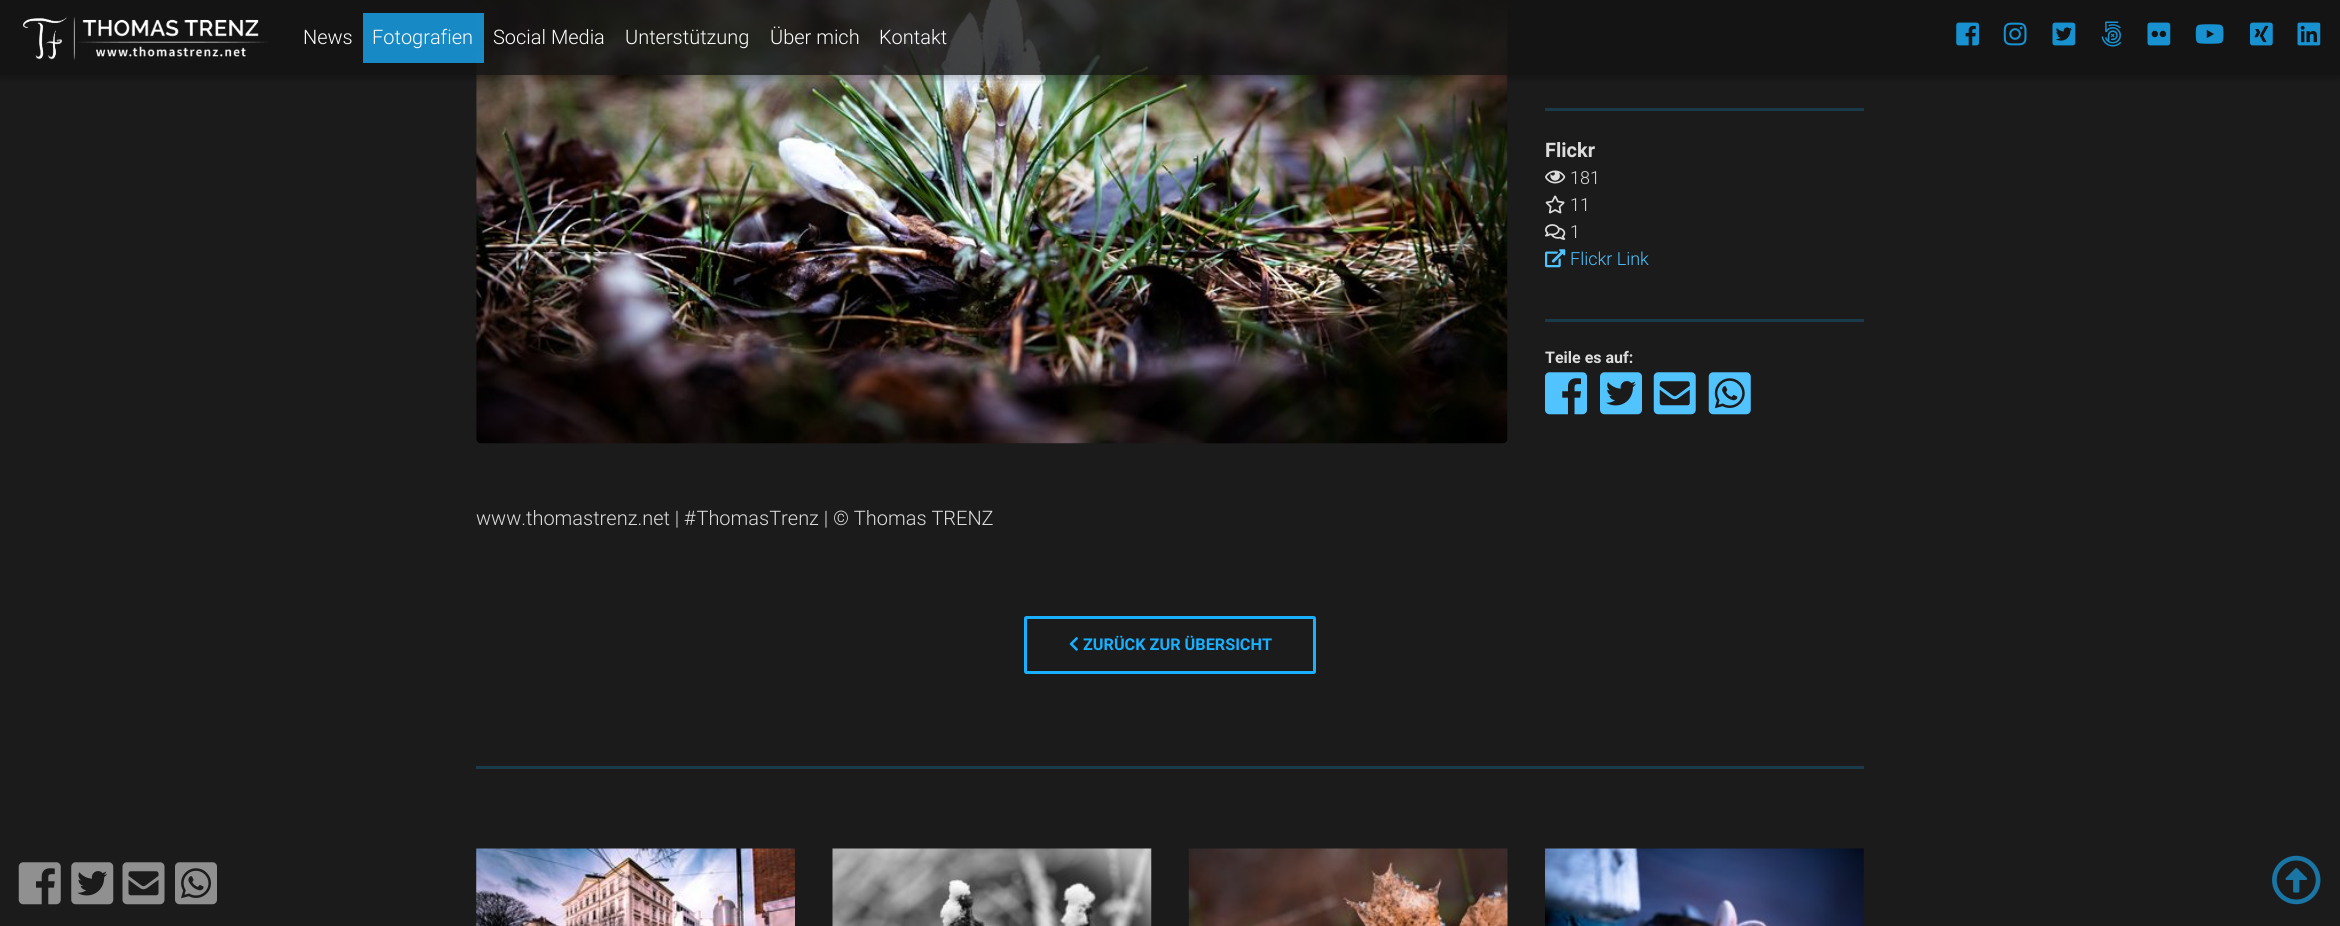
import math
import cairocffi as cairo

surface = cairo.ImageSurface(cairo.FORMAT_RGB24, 2340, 926)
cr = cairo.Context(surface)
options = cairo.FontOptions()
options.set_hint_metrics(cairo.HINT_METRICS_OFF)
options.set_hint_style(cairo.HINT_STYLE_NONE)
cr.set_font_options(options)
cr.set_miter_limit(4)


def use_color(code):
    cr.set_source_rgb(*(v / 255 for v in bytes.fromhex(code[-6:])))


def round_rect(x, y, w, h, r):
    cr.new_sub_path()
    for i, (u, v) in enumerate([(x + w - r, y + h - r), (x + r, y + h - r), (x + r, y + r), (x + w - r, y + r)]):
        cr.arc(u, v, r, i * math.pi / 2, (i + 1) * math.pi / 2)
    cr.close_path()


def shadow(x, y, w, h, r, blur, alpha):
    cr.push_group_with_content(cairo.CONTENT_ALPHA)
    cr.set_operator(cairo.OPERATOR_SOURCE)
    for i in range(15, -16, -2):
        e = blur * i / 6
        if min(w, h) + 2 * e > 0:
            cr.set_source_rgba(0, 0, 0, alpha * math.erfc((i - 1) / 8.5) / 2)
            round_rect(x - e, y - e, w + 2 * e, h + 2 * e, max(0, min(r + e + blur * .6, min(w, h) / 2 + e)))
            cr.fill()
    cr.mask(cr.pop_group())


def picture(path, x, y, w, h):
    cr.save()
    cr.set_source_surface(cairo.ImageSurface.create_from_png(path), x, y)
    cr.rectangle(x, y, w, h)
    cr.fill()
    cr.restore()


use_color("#1b1b1b")
cr.paint()
picture("img10.png", 476, 0, 1032, 444)
cr.save()
cr.rectangle(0, 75, 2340, 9)
cr.clip()
use_color("#000000")
shadow(0, 3, 2340, 75, 0, 6, 0.12)
cr.restore()
cr.save()
cr.rectangle(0, 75, 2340, 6)
cr.clip()
use_color("#000000")
shadow(0, 3, 2340, 75, 0, 3, 0.16)
cr.restore()
cr.set_source_rgba(0.078, 0.078, 0.078, 0.8)
cr.rectangle(0, 0, 2340, 75)
cr.fill()
picture("img1.png", 23, 16, 245, 44)
cr.select_font_face("Roboto Light")
cr.set_font_size(20)
use_color("#ffffff")
cr.move_to(303, 44)
cr.show_text("News")
cr.set_source_rgba(0.094, 0.69, 1, 0.75)
cr.rectangle(363, 13, 121, 50)
cr.fill()
use_color("#ffffff")
cr.move_to(372, 44)
cr.show_text("Fotografien")
cr.move_to(493, 44)
cr.show_text("Social Media")
cr.move_to(625, 44)
cr.show_text("Unterstützung")
cr.move_to(770, 44)
cr.show_text("Über mich")
cr.move_to(879, 44)
cr.show_text("Kontakt")
picture("img2.png", 1956, 22, 23, 24)
picture("img3.png", 2003, 22, 24, 24)
picture("img4.png", 2052, 22, 24, 24)
picture("img5.png", 2101, 21, 20, 26)
picture("img6.png", 2147, 22, 24, 24)
picture("img7.png", 2195, 24, 29, 20)
picture("img8.png", 2250, 22, 23, 24)
picture("img9.png", 2297, 22, 24, 24)
use_color("#1a3949")
cr.rectangle(1545, 108, 319, 3)
cr.fill()
cr.select_font_face("Roboto", cairo.FONT_SLANT_NORMAL, cairo.FONT_WEIGHT_BOLD)
use_color("#dddddd")
cr.move_to(1545, 157)
cr.show_text("Flickr")
picture("img11.png", 1545, 170, 21, 14)
cr.select_font_face("Roboto Light")
cr.set_font_size(18)
cr.move_to(1570, 184)
cr.show_text("181")
picture("img12.png", 1545, 195, 20, 19)
cr.move_to(1570, 211)
cr.show_text("11")
picture("img13.png", 1545, 224, 21, 16)
cr.move_to(1570, 238)
cr.show_text("1")
picture("img14.png", 1545, 249, 21, 19)
use_color("#51c4ff")
cr.move_to(1570, 265)
cr.show_text("Flickr Link")
use_color("#1a3949")
cr.rectangle(1545, 319, 319, 3)
cr.fill()
cr.select_font_face("Roboto", cairo.FONT_SLANT_NORMAL, cairo.FONT_WEIGHT_BOLD)
cr.set_font_size(16)
use_color("#dddddd")
cr.move_to(1545, 363)
cr.show_text("Teile es auf:")
picture("img15.png", 1545, 372, 42, 43)
picture("img16.png", 1600, 372, 42, 43)
picture("img17.png", 1653, 372, 43, 43)
picture("img18.png", 1708, 372, 43, 43)
cr.select_font_face("Roboto Light")
cr.set_font_size(20)
cr.move_to(476, 525)
cr.show_text("www.thomastrenz.net | #ThomasTrenz | © Thomas TRENZ")
round_rect(1025.5, 617.5, 289, 55, 1)
use_color("#18b0ff")
cr.set_line_width(3)
cr.stroke()
picture("img19.png", 1069, 637, 9, 14)
cr.select_font_face("Roboto", cairo.FONT_SLANT_NORMAL, cairo.FONT_WEIGHT_BOLD)
cr.set_font_size(16.25)
cr.move_to(1083, 650)
cr.show_text("ZURÜCK ZUR ÜBERSICHT")
use_color("#1a3949")
cr.rectangle(476, 766, 1388, 3)
cr.fill()
picture("img20.png", 476, 848, 319, 78)
picture("img21.png", 832, 848, 320, 78)
picture("img22.png", 1188, 848, 320, 78)
picture("img23.png", 1545, 848, 319, 78)
picture("img24.png", 18, 862, 43, 43)
picture("img25.png", 71, 862, 43, 43)
picture("img26.png", 122, 862, 43, 43)
picture("img27.png", 175, 862, 42, 43)
picture("img28.png", 2272, 855, 49, 50)
surface.write_to_png("result.png")
